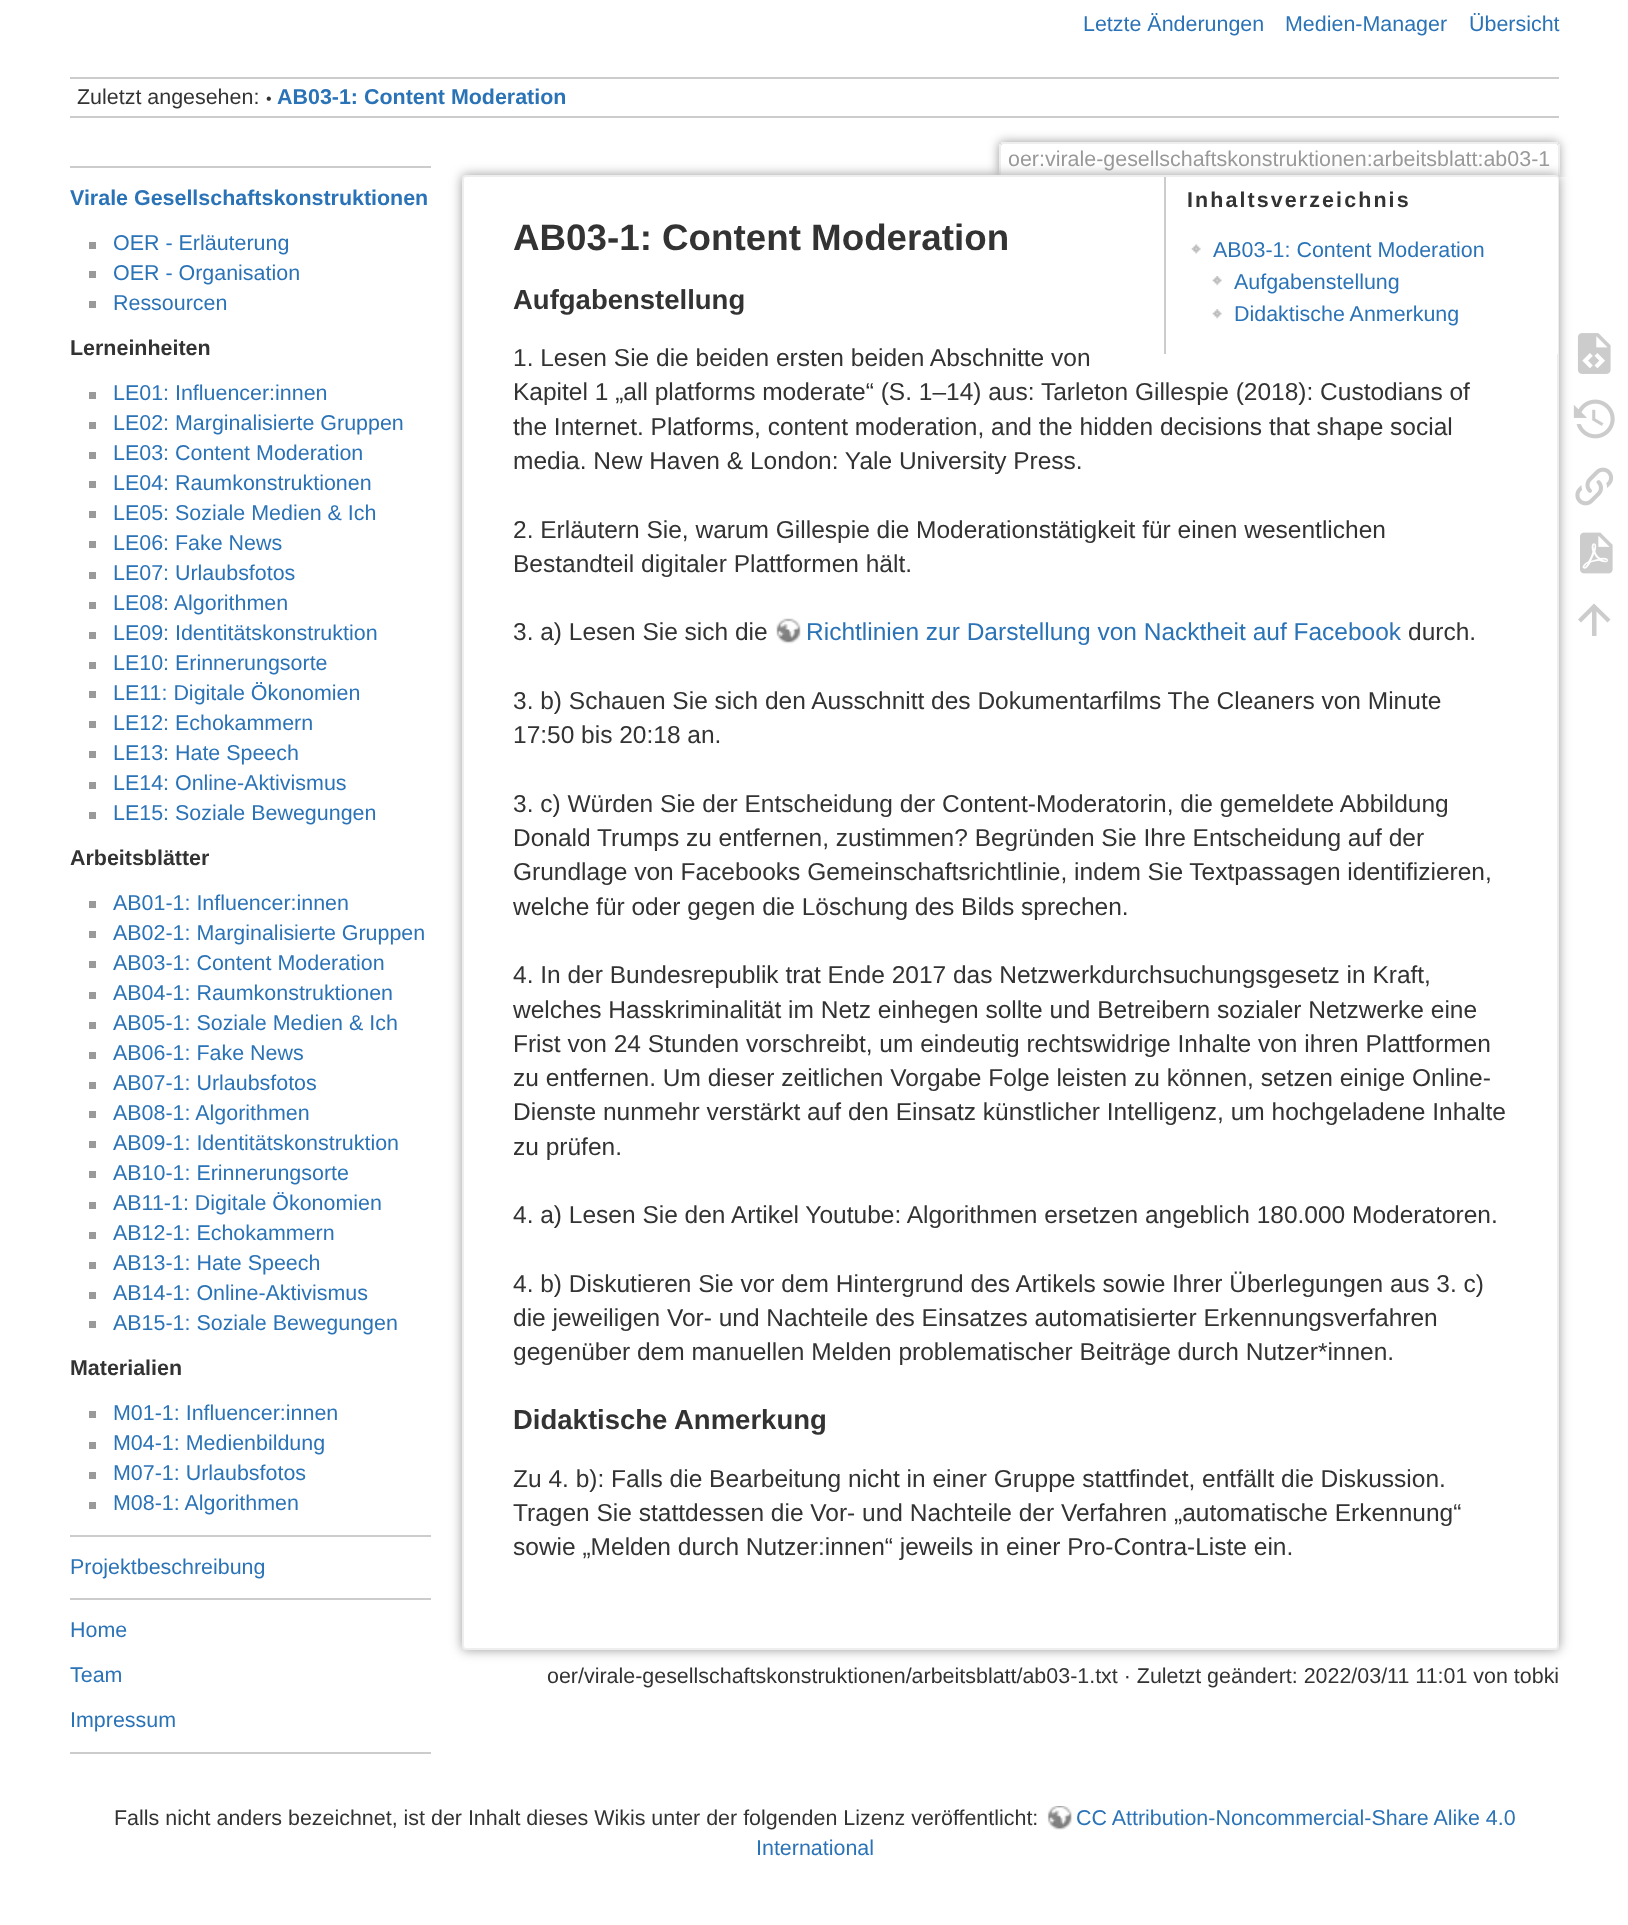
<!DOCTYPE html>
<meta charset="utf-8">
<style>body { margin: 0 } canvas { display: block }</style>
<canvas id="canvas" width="1628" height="1925"></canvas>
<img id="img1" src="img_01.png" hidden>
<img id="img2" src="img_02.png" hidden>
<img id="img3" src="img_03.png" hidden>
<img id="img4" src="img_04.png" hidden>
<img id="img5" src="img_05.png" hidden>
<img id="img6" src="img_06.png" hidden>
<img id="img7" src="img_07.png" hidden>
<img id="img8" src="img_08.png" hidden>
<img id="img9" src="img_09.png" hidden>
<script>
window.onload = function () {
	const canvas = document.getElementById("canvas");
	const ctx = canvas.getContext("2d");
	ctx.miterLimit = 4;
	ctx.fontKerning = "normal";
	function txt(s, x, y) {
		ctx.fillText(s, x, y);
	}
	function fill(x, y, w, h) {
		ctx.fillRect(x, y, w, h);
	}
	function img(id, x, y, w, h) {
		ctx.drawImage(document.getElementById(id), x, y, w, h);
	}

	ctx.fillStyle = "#FFFFFF";
	fill(0, 0, 1628, 1925);
	ctx.fillStyle = "#CCCCCC";
	fill(70, 77, 1489, 2);
	fill(70, 116, 1489, 2);
	fill(70, 166, 361, 2);
	ctx.fillStyle = "#999999";
	fill(89, 242, 7, 7);
	fill(89, 271, 7, 7);
	fill(89, 301, 7, 7);
	fill(89, 392, 7, 7);
	fill(89, 422, 7, 7);
	fill(89, 452, 7, 7);
	fill(89, 481, 7, 7);
	fill(89, 511, 7, 7);
	fill(89, 541, 7, 7);
	fill(89, 572, 7, 7);
	fill(89, 602, 7, 7);
	fill(89, 632, 7, 7);
	fill(89, 662, 7, 7);
	fill(89, 691, 7, 7);
	fill(89, 721, 7, 7);
	fill(89, 751, 7, 7);
	fill(89, 782, 7, 7);
	fill(89, 812, 7, 7);
	fill(89, 901, 7, 7);
	fill(89, 931, 7, 7);
	fill(89, 961, 7, 7);
	fill(89, 992, 7, 7);
	fill(89, 1022, 7, 7);
	fill(89, 1052, 7, 7);
	fill(89, 1082, 7, 7);
	fill(89, 1111, 7, 7);
	fill(89, 1141, 7, 7);
	fill(89, 1171, 7, 7);
	fill(89, 1202, 7, 7);
	fill(89, 1232, 7, 7);
	fill(89, 1262, 7, 7);
	fill(89, 1292, 7, 7);
	fill(89, 1321, 7, 7);
	fill(89, 1411, 7, 7);
	fill(89, 1442, 7, 7);
	fill(89, 1472, 7, 7);
	fill(89, 1502, 7, 7);
	ctx.fillStyle = "#CCCCCC";
	fill(70, 1535, 361, 2);
	fill(70, 1598, 361, 2);
	fill(70, 1752, 361, 2);
	ctx.save();
	ctx.beginPath();
	ctx.rect(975, 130, 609, 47);
	ctx.clip();
	ctx.fillStyle = "#999999";
	ctx.filter = "blur(5.5px)";
	ctx.beginPath();
	ctx.roundRect(999, 142, 560, 35, 4);
	ctx.fill();
	ctx.filter = "none";
	ctx.restore();
	ctx.fillStyle = "#FFFFFF";
	ctx.beginPath();
	ctx.roundRect(1001, 144, 557, 33, [2, 2, 0, 0]);
	ctx.fill();
	ctx.fillStyle = "#EEEEEE";
	fill(1001, 142, 557, 2);
	fill(1558, 144, 2, 33);
	fill(999, 144, 2, 33);
	ctx.fillStyle = "#999999";
	ctx.filter = "blur(6px)";
	ctx.beginPath();
	ctx.roundRect(462, 175, 1097, 1475, 4);
	ctx.fill();
	ctx.filter = "none";
	ctx.fillStyle = "#FFFFFF";
	ctx.beginPath();
	ctx.roundRect(463, 176, 1095, 1473, 3);
	ctx.fill();
	ctx.strokeStyle = "#EEEEEE";
	ctx.lineWidth = 2;
	ctx.stroke();
	ctx.beginPath();
	ctx.roundRect(1164, 177, 394, 177, [0, 2, 0, 0]);
	ctx.fill();
	ctx.fillStyle = "#CCCCCC";
	fill(1164, 177, 2, 177);
	img("img1", 1191, 244, 10, 10);
	img("img2", 1212, 276, 10, 10);
	img("img3", 1212, 309, 10, 10);
	img("img4", 776, 618, 25, 26);
	img("img5", 1577, 333, 34, 41);
	img("img6", 1573, 399, 42, 40);
	img("img7", 1575, 467, 39, 39);
	img("img8", 1580, 532, 33, 42);
	ctx.beginPath();
	ctx.moveTo(1596.5, 636);
	ctx.lineTo(1592, 636);
	ctx.lineTo(1592, 611.5);
	ctx.lineTo(1581, 622.5);
	ctx.lineTo(1578, 619.5);
	ctx.lineTo(1594, 603.5);
	ctx.lineTo(1610.5, 619.5);
	ctx.lineTo(1607.5, 622.5);
	ctx.lineTo(1596.5, 611.5);
	ctx.closePath();
	ctx.fill();
	img("img9", 1047, 1806, 26, 24);
	ctx.font = "21.45px Liberation Sans";
	ctx.fillStyle = "#2B73B7";
	txt("Letzte Änderungen", 1083, 31);
	txt("Medien-Manager", 1285, 31);
	txt("Übersicht", 1469, 31);
	ctx.fillStyle = "#333333";
	txt("Zuletzt angesehen:", 77, 104);
	ctx.font = "16px Liberation Sans";
	txt("•", 266, 104);
	ctx.font = "bold 21.45px Liberation Sans";
	ctx.fillStyle = "#2B73B7";
	txt("AB03-1: Content Moderation", 277, 104);
	txt("Virale Gesellschaftskonstruktionen", 70, 205);
	ctx.font = "21.45px Liberation Sans";
	txt("OER - Erläuterung", 113, 250);
	txt("OER - Organisation", 113, 280);
	txt("Ressourcen", 113, 310);
	ctx.font = "bold 21.45px Liberation Sans";
	ctx.fillStyle = "#333333";
	txt("Lerneinheiten", 70, 355);
	ctx.font = "21.45px Liberation Sans";
	ctx.fillStyle = "#2B73B7";
	txt("LE01: Influencer:innen", 113, 400);
	txt("LE02: Marginalisierte Gruppen", 113, 430);
	txt("LE03: Content Moderation", 113, 460);
	txt("LE04: Raumkonstruktionen", 113, 490);
	txt("LE05: Soziale Medien & Ich", 113, 520);
	txt("LE06: Fake News", 113, 550);
	txt("LE07: Urlaubsfotos", 113, 580);
	txt("LE08: Algorithmen", 113, 610);
	txt("LE09: Identitätskonstruktion", 113, 640);
	txt("LE10: Erinnerungsorte", 113, 670);
	txt("LE11: Digitale Ökonomien", 113, 700);
	txt("LE12: Echokammern", 113, 730);
	txt("LE13: Hate Speech", 113, 760);
	txt("LE14: Online-Aktivismus", 113, 790);
	txt("LE15: Soziale Bewegungen", 113, 820);
	ctx.font = "bold 21.45px Liberation Sans";
	ctx.fillStyle = "#333333";
	txt("Arbeitsblätter", 70, 865);
	ctx.font = "21.45px Liberation Sans";
	ctx.fillStyle = "#2B73B7";
	txt("AB01-1: Influencer:innen", 113, 910);
	txt("AB02-1: Marginalisierte Gruppen", 113, 940);
	txt("AB03-1: Content Moderation", 113, 970);
	txt("AB04-1: Raumkonstruktionen", 113, 1000);
	txt("AB05-1: Soziale Medien & Ich", 113, 1030);
	txt("AB06-1: Fake News", 113, 1060);
	txt("AB07-1: Urlaubsfotos", 113, 1090);
	txt("AB08-1: Algorithmen", 113, 1120);
	txt("AB09-1: Identitätskonstruktion", 113, 1150);
	txt("AB10-1: Erinnerungsorte", 113, 1180);
	txt("AB11-1: Digitale Ökonomien", 113, 1210);
	txt("AB12-1: Echokammern", 113, 1240);
	txt("AB13-1: Hate Speech", 113, 1270);
	txt("AB14-1: Online-Aktivismus", 113, 1300);
	txt("AB15-1: Soziale Bewegungen", 113, 1330);
	ctx.font = "bold 21.45px Liberation Sans";
	ctx.fillStyle = "#333333";
	txt("Materialien", 70, 1375);
	ctx.font = "21.45px Liberation Sans";
	ctx.fillStyle = "#2B73B7";
	txt("M01-1: Influencer:innen", 113, 1420);
	txt("M04-1: Medienbildung", 113, 1450);
	txt("M07-1: Urlaubsfotos", 113, 1480);
	txt("M08-1: Algorithmen", 113, 1510);
	txt("Projektbeschreibung", 70, 1574);
	txt("Home", 70, 1637);
	txt("Team", 70, 1682);
	txt("Impressum", 70, 1727);
	ctx.fillStyle = "#999999";
	txt("oer:virale-gesellschaftskonstruktionen:arbeitsblatt:ab03-1", 1008, 166);
	ctx.font = "bold 36.75px Liberation Sans";
	ctx.fillStyle = "#333333";
	txt("AB03-1: Content Moderation", 513, 250);
	ctx.letterSpacing = "2.1px";
	ctx.font = "bold 21.45px Liberation Sans";
	txt("Inhaltsverzeichnis", 1187, 207);
	ctx.letterSpacing = "0px";
	ctx.font = "21.45px Liberation Sans";
	ctx.fillStyle = "#2B73B7";
	txt("AB03-1: Content Moderation", 1213, 257);
	txt("Aufgabenstellung", 1234, 289);
	txt("Didaktische Anmerkung", 1234, 321);
	ctx.font = "bold 27.5px Liberation Sans";
	ctx.fillStyle = "#333333";
	txt("Aufgabenstellung", 513, 309);
	ctx.font = "24.5px Liberation Sans";
	txt("1. Lesen Sie die beiden ersten beiden Abschnitte von", 513, 366);
	txt("Kapitel 1 „all platforms moderate“ (S. 1–14) aus: Tarleton Gillespie (2018): Custodians of", 513, 400);
	txt("the Internet. Platforms, content moderation, and the hidden decisions that shape social", 513, 435);
	txt("media. New Haven & London: Yale University Press.", 513, 469);
	txt("2. Erläutern Sie, warum Gillespie die Moderationstätigkeit für einen wesentlichen", 513, 538);
	txt("Bestandteil digitaler Plattformen hält.", 513, 572);
	txt("3. a) Lesen Sie sich die", 513, 640);
	ctx.fillStyle = "#2B73B7";
	txt("Richtlinien zur Darstellung von Nacktheit auf Facebook", 806, 640);
	ctx.fillStyle = "#333333";
	txt("durch.", 1408, 640);
	txt("3. b) Schauen Sie sich den Ausschnitt des Dokumentarfilms The Cleaners von Minute", 513, 709);
	txt("17:50 bis 20:18 an.", 513, 743);
	txt("3. c) Würden Sie der Entscheidung der Content-Moderatorin, die gemeldete Abbildung", 513, 812);
	txt("Donald Trumps zu entfernen, zustimmen? Begründen Sie Ihre Entscheidung auf der", 513, 846);
	txt("Grundlage von Facebooks Gemeinschaftsrichtlinie, indem Sie Textpassagen identifizieren,", 513, 880);
	txt("welche für oder gegen die Löschung des Bilds sprechen.", 513, 915);
	txt("4. In der Bundesrepublik trat Ende 2017 das Netzwerkdurchsuchungsgesetz in Kraft,", 513, 983);
	txt("welches Hasskriminalität im Netz einhegen sollte und Betreibern sozialer Netzwerke eine", 513, 1018);
	txt("Frist von 24 Stunden vorschreibt, um eindeutig rechtswidrige Inhalte von ihren Plattformen", 513, 1052);
	txt("zu entfernen. Um dieser zeitlichen Vorgabe Folge leisten zu können, setzen einige Online-", 513, 1086);
	txt("Dienste nunmehr verstärkt auf den Einsatz künstlicher Intelligenz, um hochgeladene Inhalte", 513, 1120);
	txt("zu prüfen.", 513, 1155);
	txt("4. a) Lesen Sie den Artikel Youtube: Algorithmen ersetzen angeblich 180.000 Moderatoren.", 513, 1223);
	txt("4. b) Diskutieren Sie vor dem Hintergrund des Artikels sowie Ihrer Überlegungen aus 3. c)", 513, 1292);
	txt("die jeweiligen Vor- und Nachteile des Einsatzes automatisierter Erkennungsverfahren", 513, 1326);
	txt("gegenüber dem manuellen Melden problematischer Beiträge durch Nutzer*innen.", 513, 1360);
	ctx.font = "bold 27.5px Liberation Sans";
	txt("Didaktische Anmerkung", 513, 1429);
	ctx.font = "24.5px Liberation Sans";
	txt("Zu 4. b): Falls die Bearbeitung nicht in einer Gruppe stattfindet, entfällt die Diskussion.", 513, 1487);
	txt("Tragen Sie stattdessen die Vor- und Nachteile der Verfahren „automatische Erkennung“", 513, 1521);
	txt("sowie „Melden durch Nutzer:innen“ jeweils in einer Pro-Contra-Liste ein.", 513, 1555);
	ctx.font = "21.45px Liberation Sans";
	txt("oer/virale-gesellschaftskonstruktionen/arbeitsblatt/ab03-1.txt · Zuletzt geändert: 2022/03/11 11:01 von tobki", 547, 1683);
	txt("Falls nicht anders bezeichnet, ist der Inhalt dieses Wikis unter der folgenden Lizenz veröffentlicht:", 114, 1825);
	ctx.fillStyle = "#2B73B7";
	txt("CC Attribution-Noncommercial-Share Alike 4.0", 1076, 1825);
	txt("International", 756, 1855);
};
</script>
